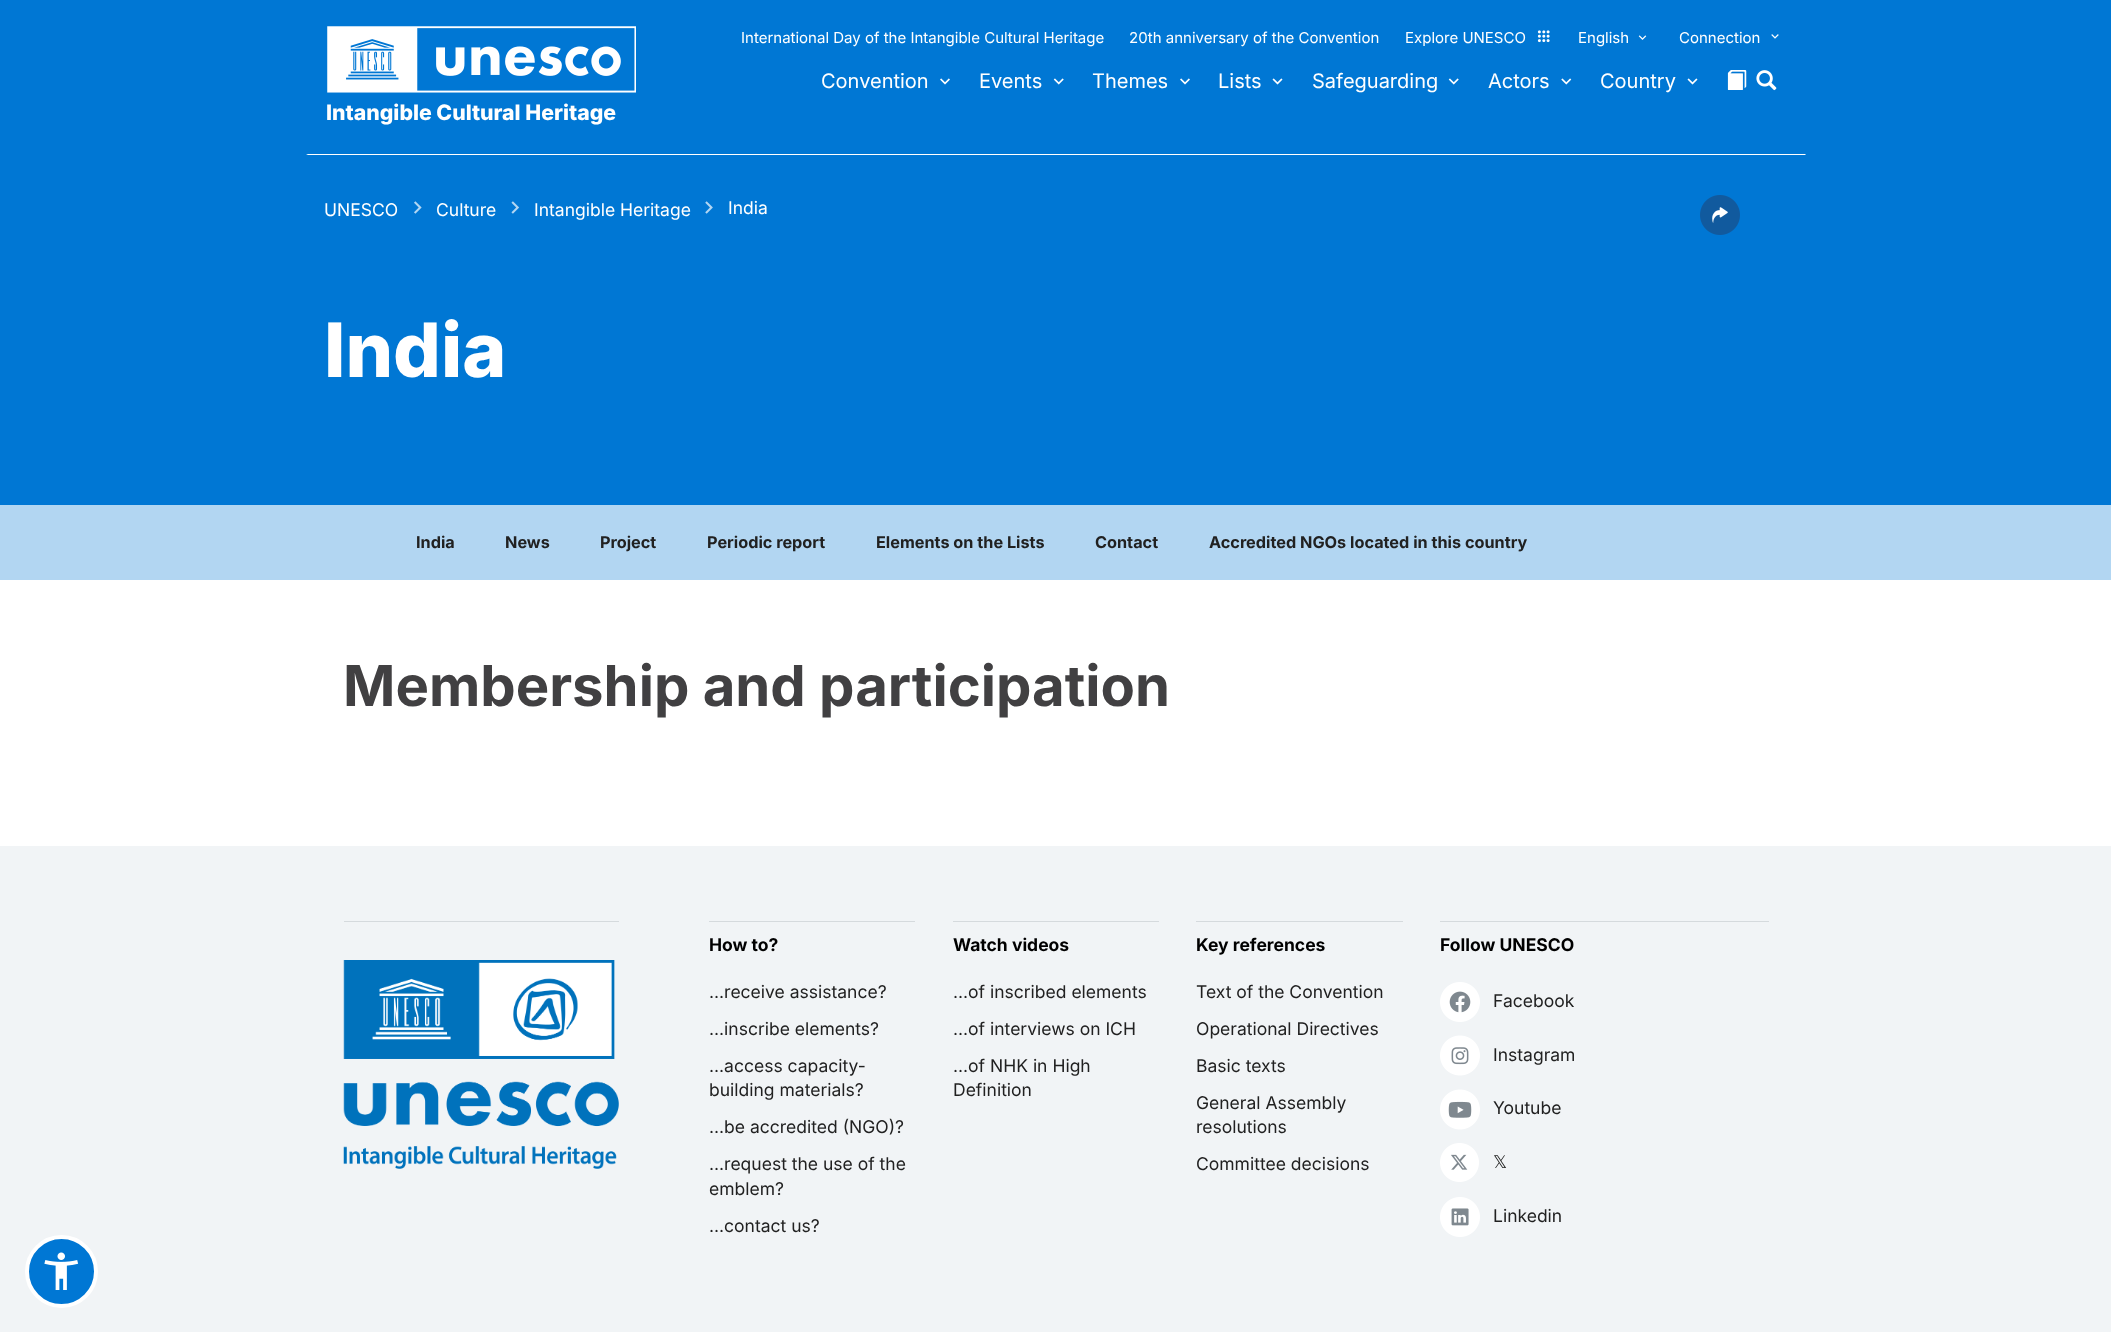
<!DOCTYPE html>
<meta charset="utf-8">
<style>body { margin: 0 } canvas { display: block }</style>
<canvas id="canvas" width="2111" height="1332"></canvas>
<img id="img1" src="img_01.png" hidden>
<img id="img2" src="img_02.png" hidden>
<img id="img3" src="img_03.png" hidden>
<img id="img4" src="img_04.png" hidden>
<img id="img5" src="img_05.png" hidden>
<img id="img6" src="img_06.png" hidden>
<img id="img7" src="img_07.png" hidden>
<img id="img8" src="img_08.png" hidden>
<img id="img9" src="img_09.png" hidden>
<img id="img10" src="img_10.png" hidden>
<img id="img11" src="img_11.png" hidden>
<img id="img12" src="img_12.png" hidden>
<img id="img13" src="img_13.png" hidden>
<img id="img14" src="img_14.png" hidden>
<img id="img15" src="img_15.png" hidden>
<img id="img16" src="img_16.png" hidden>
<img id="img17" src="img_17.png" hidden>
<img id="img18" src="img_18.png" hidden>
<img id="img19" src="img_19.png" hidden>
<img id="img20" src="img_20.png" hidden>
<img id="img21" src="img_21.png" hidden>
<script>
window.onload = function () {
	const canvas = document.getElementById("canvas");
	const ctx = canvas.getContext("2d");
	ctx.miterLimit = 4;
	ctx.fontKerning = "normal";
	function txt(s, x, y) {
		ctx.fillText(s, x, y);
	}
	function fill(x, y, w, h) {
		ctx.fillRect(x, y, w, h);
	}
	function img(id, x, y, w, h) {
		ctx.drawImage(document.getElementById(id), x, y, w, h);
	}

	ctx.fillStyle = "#FFFFFF";
	fill(0, 0, 2111, 1332);
	ctx.fillStyle = "#0077D4";
	fill(0, 0, 2111, 505);
	ctx.fillStyle = "#FFFFFF";
	ctx.beginPath();
	ctx.moveTo(1806, 155);
	ctx.lineTo(306, 155);
	ctx.lineTo(308, 154);
	ctx.lineTo(1805, 154);
	ctx.closePath();
	ctx.fill();
	img("img1", 1537, 30, 13, 13);
	img("img2", 1638, 35, 9, 5);
	img("img3", 1771, 34, 8, 5);
	img("img4", 940, 78, 10, 7);
	img("img5", 1053, 78, 11, 7);
	img("img4", 1180, 78, 10, 7);
	img("img6", 1272, 78, 11, 7);
	img("img5", 1448, 78, 11, 7);
	img("img7", 1561, 78, 11, 7);
	img("img6", 1687, 78, 11, 7);
	img("img8", 1727, 70, 20, 20);
	img("img9", 1756, 70, 21, 21);
	img("img10", 327, 26, 309, 67);
	img("img11", 414, 201, 8, 13);
	img("img12", 511, 201, 9, 13);
	img("img13", 705, 201, 8, 13);
	img("img14", 1700, 195, 40, 40);
	ctx.fillStyle = "#B2D6F2";
	fill(0, 505, 2111, 75);
	ctx.fillStyle = "#F1F4F6";
	fill(0, 846, 2111, 486);
	ctx.fillStyle = "#D5DADD";
	fill(344, 921, 275, 1);
	img("img15", 343, 960, 276, 209);
	fill(709, 921, 206, 1);
	fill(953, 921, 206, 1);
	fill(1196, 921, 207, 1);
	fill(1440, 921, 329, 1);
	img("img16", 1440, 982, 40, 40);
	img("img17", 1440, 1035, 40, 41);
	img("img18", 1440, 1089, 40, 41);
	img("img19", 1440, 1143, 39, 39);
	img("img20", 1440, 1197, 40, 40);
	ctx.fillStyle = "#0077D4";
	ctx.beginPath();
	ctx.arc(61.5, 1271.5, 34.5, 0, Math.PI * 2);
	ctx.fill();
	ctx.strokeStyle = "#FFFFFF";
	ctx.lineWidth = 4;
	ctx.stroke();
	img("img21", 44, 1252, 35, 38);
	ctx.font = "15px Inter";
	ctx.fillStyle = "#FFFFFF";
	txt("International Day of the Intangible Cultural Heritage", 741, 43);
	txt("20th anniversary of the Convention", 1129, 43);
	txt("Explore UNESCO", 1405, 43);
	txt("English", 1578, 43);
	txt("Connection", 1679, 43);
	ctx.font = "20px Inter";
	txt("Convention", 821, 88);
	txt("Events", 979, 88);
	txt("Themes", 1092, 88);
	txt("Lists", 1218, 88);
	txt("Safeguarding", 1312, 88);
	txt("Actors", 1488, 88);
	txt("Country", 1600, 88);
	ctx.font = "800 21.25px Inter";
	txt("Intangible Cultural Heritage", 326, 120);
	ctx.font = "17.5px Inter";
	txt("UNESCO", 324, 216);
	txt("Culture", 436, 216);
	txt("Intangible Heritage", 534, 216);
	txt("India", 728, 214);
	ctx.font = "800 75px Inter";
	txt("India", 324, 377);
	ctx.font = "bold 16.25px Inter";
	ctx.fillStyle = "#212121";
	txt("India", 416, 548);
	txt("News", 505, 548);
	txt("Project", 600, 548);
	txt("Periodic report", 707, 548);
	txt("Elements on the Lists", 876, 548);
	txt("Contact", 1095, 548);
	txt("Accredited NGOs located in this country", 1209, 548);
	ctx.font = "bold 56.25px Inter";
	ctx.fillStyle = "#414042";
	txt("Membership and participation", 343, 706);
	ctx.font = "bold 17.5px Inter";
	ctx.fillStyle = "#000000";
	txt("How to?", 709, 951);
	ctx.font = "17.5px Inter";
	ctx.fillStyle = "#212121";
	txt("...receive assistance?", 709, 998);
	txt("...inscribe elements?", 709, 1035);
	txt("...access capacity-", 709, 1072);
	txt("building materials?", 709, 1096);
	txt("...be accredited (NGO)?", 709, 1133);
	txt("...request the use of the", 709, 1170);
	txt("emblem?", 709, 1195);
	txt("...contact us?", 709, 1232);
	ctx.font = "bold 17.5px Inter";
	ctx.fillStyle = "#000000";
	txt("Watch videos", 953, 951);
	ctx.font = "17.5px Inter";
	ctx.fillStyle = "#212121";
	txt("...of inscribed elements", 953, 998);
	txt("...of interviews on ICH", 953, 1035);
	txt("...of NHK in High", 953, 1072);
	txt("Definition", 953, 1096);
	ctx.font = "bold 17.5px Inter";
	ctx.fillStyle = "#000000";
	txt("Key references", 1196, 951);
	ctx.font = "17.5px Inter";
	ctx.fillStyle = "#212121";
	txt("Text of the Convention", 1196, 998);
	txt("Operational Directives", 1196, 1035);
	txt("Basic texts", 1196, 1072);
	txt("General Assembly", 1196, 1109);
	txt("resolutions", 1196, 1133);
	txt("Committee decisions", 1196, 1170);
	ctx.font = "bold 17.5px Inter";
	ctx.fillStyle = "#000000";
	txt("Follow UNESCO", 1440, 951);
	ctx.font = "17.5px Inter";
	ctx.fillStyle = "#212121";
	txt("Facebook", 1493, 1007);
	txt("Instagram", 1493, 1061);
	txt("Youtube", 1493, 1114);
	ctx.font = "17.5px DejaVu Sans";
	txt("𝕏", 1493, 1168);
	ctx.font = "17.5px Inter";
	txt("Linkedin", 1493, 1222);
};
</script>
